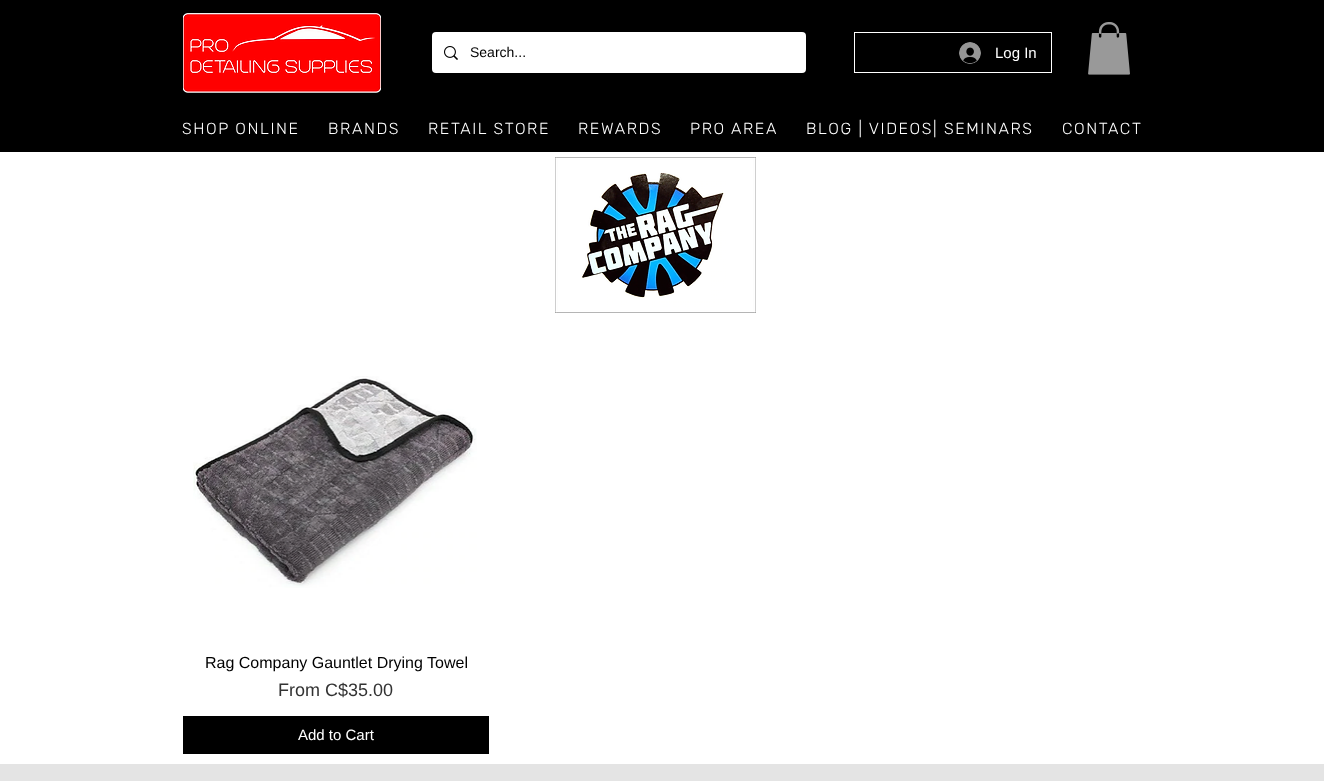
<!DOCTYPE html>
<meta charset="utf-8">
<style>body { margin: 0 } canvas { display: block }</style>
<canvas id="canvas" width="1324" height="781"></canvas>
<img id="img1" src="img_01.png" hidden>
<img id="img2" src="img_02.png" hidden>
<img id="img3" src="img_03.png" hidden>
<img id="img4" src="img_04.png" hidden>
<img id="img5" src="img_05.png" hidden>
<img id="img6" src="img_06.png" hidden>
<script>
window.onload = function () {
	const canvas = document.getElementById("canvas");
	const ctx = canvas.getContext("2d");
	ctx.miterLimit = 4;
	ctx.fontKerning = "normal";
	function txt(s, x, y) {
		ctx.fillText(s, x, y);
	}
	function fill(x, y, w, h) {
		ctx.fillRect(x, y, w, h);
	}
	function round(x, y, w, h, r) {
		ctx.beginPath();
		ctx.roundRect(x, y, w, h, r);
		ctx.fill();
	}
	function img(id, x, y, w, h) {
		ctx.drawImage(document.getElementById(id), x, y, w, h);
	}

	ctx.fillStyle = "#FFFFFF";
	fill(0, 0, 1324, 781);
	ctx.fillStyle = "#000000";
	fill(0, 0, 1324, 152);
	img("img1", 183, 13, 198, 80);
	ctx.fillStyle = "#FFFFFF";
	round(432, 32, 374, 41, 4);
	img("img2", 444, 46, 14, 14);
	ctx.strokeStyle = "#FFFFFF";
	ctx.strokeRect(854.5, 32.5, 197, 40);
	img("img3", 959, 42, 22, 22);
	img("img4", 1088, 22, 42, 53);
	img("img5", 555, 157, 201, 156);
	img("img6", 193, 376, 284, 212);
	ctx.fillStyle = "#000000";
	fill(183, 716, 306, 38);
	ctx.fillStyle = "#E4E4E4";
	fill(0, 764, 1324, 17);
	ctx.font = "14px Liberation Sans";
	ctx.fillStyle = "#000000";
	txt("Search...", 470, 57);
	ctx.font = "15px Liberation Sans";
	ctx.fillStyle = "#FFFFFF";
	txt("Log In", 995, 58);
	ctx.letterSpacing = "1.6px";
	ctx.font = "300 16px Rubik";
	txt("SHOP ONLINE", 182, 134);
	txt("BRANDS", 328, 134);
	txt("RETAIL STORE", 428, 134);
	txt("REWARDS", 578, 134);
	txt("PRO AREA", 690, 134);
	txt("BLOG | VIDEOS| SEMINARS", 806, 134);
	txt("CONTACT", 1062, 134);
	ctx.letterSpacing = "0px";
	ctx.font = "16px Liberation Sans";
	ctx.fillStyle = "#000000";
	txt("Rag Company Gauntlet Drying Towel", 205, 668);
	ctx.font = "18px Liberation Sans";
	ctx.fillStyle = "#333333";
	txt("From C$35.00", 278, 696);
	ctx.font = "15px Liberation Sans";
	ctx.fillStyle = "#FFFFFF";
	txt("Add to Cart", 298, 740);
};
</script>
